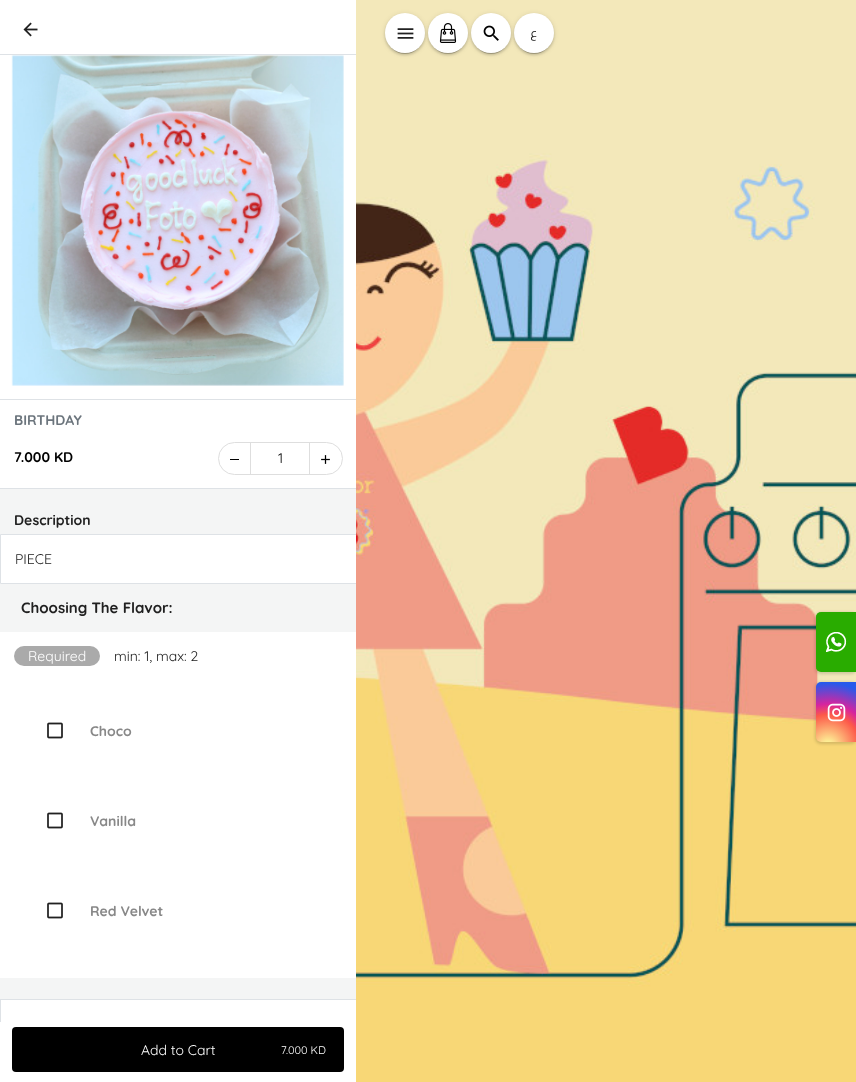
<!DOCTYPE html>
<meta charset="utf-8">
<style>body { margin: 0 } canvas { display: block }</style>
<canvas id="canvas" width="856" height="1082"></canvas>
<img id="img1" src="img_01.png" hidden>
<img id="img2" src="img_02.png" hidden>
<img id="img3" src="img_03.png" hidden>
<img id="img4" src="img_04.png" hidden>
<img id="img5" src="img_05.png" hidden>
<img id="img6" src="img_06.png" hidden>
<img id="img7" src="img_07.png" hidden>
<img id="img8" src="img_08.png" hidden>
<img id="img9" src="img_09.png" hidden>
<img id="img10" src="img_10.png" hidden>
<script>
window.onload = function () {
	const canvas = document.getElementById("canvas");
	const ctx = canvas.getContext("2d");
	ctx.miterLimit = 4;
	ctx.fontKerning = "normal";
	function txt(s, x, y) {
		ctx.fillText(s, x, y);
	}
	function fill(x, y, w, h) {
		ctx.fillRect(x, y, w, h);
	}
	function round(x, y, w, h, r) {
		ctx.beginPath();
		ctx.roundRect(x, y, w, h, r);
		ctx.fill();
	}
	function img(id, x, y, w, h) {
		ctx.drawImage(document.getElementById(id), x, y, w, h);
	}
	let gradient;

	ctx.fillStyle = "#F4F5F5";
	fill(0, 0, 856, 1082);
	ctx.fillStyle = "#DEE2E6";
	fill(0, 399, 357, 1);
	fill(0, 488, 357, 1);
	ctx.fillStyle = "#FFFFFF";
	ctx.beginPath();
	ctx.rect(0.5, 534.5, 356, 49);
	ctx.fill();
	ctx.strokeStyle = "#DEE2E6";
	ctx.stroke();
	fill(1, 1000, 355, 22);
	ctx.strokeRect(0.5, 999.5, 356, 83);
	img("img1", 356, 0, 500, 1082);
	ctx.fillStyle = "rgba(0, 0, 0, 0.12)";
	ctx.filter = "blur(2.5px)";
	ctx.beginPath();
	ctx.roundRect(385, 14, 40, 40, 20);
	ctx.fill();
	ctx.filter = "none";
	ctx.fillStyle = "rgba(0, 0, 0, 0.14)";
	ctx.filter = "blur(1px)";
	ctx.beginPath();
	ctx.roundRect(385, 15, 40, 40, 20);
	ctx.fill();
	ctx.filter = "none";
	ctx.fillStyle = "rgba(0, 0, 0, 0.2)";
	ctx.filter = "blur(0.5px)";
	ctx.beginPath();
	ctx.roundRect(387, 18, 36, 36, 18);
	ctx.fill();
	ctx.filter = "none";
	ctx.fillStyle = "#FFFFFF";
	ctx.beginPath();
	ctx.arc(405, 33, 20, 0, Math.PI * 2);
	ctx.fill();
	img("img2", 397, 28, 17, 11);
	ctx.fillStyle = "rgba(0, 0, 0, 0.12)";
	ctx.filter = "blur(2.5px)";
	ctx.beginPath();
	ctx.roundRect(514, 14, 40, 40, 20);
	ctx.fill();
	ctx.filter = "none";
	ctx.fillStyle = "rgba(0, 0, 0, 0.14)";
	ctx.filter = "blur(1px)";
	ctx.beginPath();
	ctx.roundRect(514, 15, 40, 40, 20);
	ctx.fill();
	ctx.filter = "none";
	ctx.fillStyle = "rgba(0, 0, 0, 0.2)";
	ctx.filter = "blur(0.5px)";
	ctx.beginPath();
	ctx.roundRect(516, 18, 36, 36, 18);
	ctx.fill();
	ctx.filter = "none";
	ctx.fillStyle = "#FFFFFF";
	ctx.beginPath();
	ctx.arc(534, 33, 20, 0, Math.PI * 2);
	ctx.fill();
	ctx.fillStyle = "rgba(0, 0, 0, 0.12)";
	ctx.filter = "blur(2.5px)";
	ctx.beginPath();
	ctx.roundRect(471, 14, 40, 40, 20);
	ctx.fill();
	ctx.filter = "none";
	ctx.fillStyle = "rgba(0, 0, 0, 0.14)";
	ctx.filter = "blur(1px)";
	ctx.beginPath();
	ctx.roundRect(471, 15, 40, 40, 20);
	ctx.fill();
	ctx.filter = "none";
	ctx.fillStyle = "rgba(0, 0, 0, 0.2)";
	ctx.filter = "blur(0.5px)";
	ctx.beginPath();
	ctx.roundRect(473, 18, 36, 36, 18);
	ctx.fill();
	ctx.filter = "none";
	ctx.fillStyle = "#FFFFFF";
	ctx.beginPath();
	ctx.arc(491, 33, 20, 0, Math.PI * 2);
	ctx.fill();
	ctx.fillStyle = "rgba(0, 0, 0, 0.12)";
	ctx.filter = "blur(2.5px)";
	ctx.beginPath();
	ctx.roundRect(428, 14, 40, 40, 20);
	ctx.fill();
	ctx.filter = "none";
	ctx.fillStyle = "rgba(0, 0, 0, 0.14)";
	ctx.filter = "blur(1px)";
	ctx.beginPath();
	ctx.roundRect(428, 15, 40, 40, 20);
	ctx.fill();
	ctx.filter = "none";
	ctx.fillStyle = "rgba(0, 0, 0, 0.2)";
	ctx.filter = "blur(0.5px)";
	ctx.beginPath();
	ctx.roundRect(430, 18, 36, 36, 18);
	ctx.fill();
	ctx.filter = "none";
	ctx.fillStyle = "#FFFFFF";
	ctx.beginPath();
	ctx.arc(448, 33, 20, 0, Math.PI * 2);
	ctx.fill();
	img("img3", 439, 23, 18, 20);
	img("img4", 483, 25, 16, 16);
	fill(0, 0, 356, 54);
	ctx.fillStyle = "#DEE2E6";
	fill(0, 54, 356, 1);
	img("img5", 23, 22, 15, 15);
	ctx.fillStyle = "#FFFFFF";
	fill(0, 55, 356, 344);
	img("img6", 11, 55, 333, 331);
	fill(0, 400, 356, 88);
	ctx.beginPath();
	ctx.roundRect(218.5, 442.5, 124, 32, 16);
	ctx.strokeStyle = "#DEDEDE";
	ctx.stroke();
	ctx.fillStyle = "#000000";
	fill(230, 459, 9, 1);
	ctx.fillStyle = "#DEDEDE";
	fill(309, 442, 1, 32);
	fill(250, 442, 1, 32);
	img("img7", 321, 455, 9, 9);
	ctx.fillStyle = "#FFFFFF";
	fill(0, 632, 356, 346);
	ctx.fillStyle = "#AAAAAA";
	round(14, 646, 86, 20, 10);
	img("img8", 47, 722, 16, 17);
	img("img8", 47, 812, 16, 17);
	img("img8", 47, 902, 16, 17);
	ctx.fillStyle = "#FFFFFF";
	fill(0, 1022, 356, 60);
	ctx.fillStyle = "#000000";
	round(12, 1027, 332, 45, 4);
	ctx.fillStyle = "rgba(0, 0, 0, 0.15)";
	ctx.filter = "blur(1.5px)";
	ctx.beginPath();
	ctx.roundRect(815, 612, 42, 62, 6);
	ctx.fill();
	ctx.filter = "none";
	ctx.fillStyle = "#29AC00";
	ctx.beginPath();
	ctx.roundRect(816, 612, 40, 60, [5, 0, 0, 5]);
	ctx.fill();
	img("img9", 816, 613, 31, 58);
	ctx.fillStyle = "rgba(0, 0, 0, 0.15)";
	ctx.filter = "blur(1.5px)";
	ctx.beginPath();
	ctx.roundRect(815, 682, 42, 62, 6);
	ctx.fill();
	ctx.filter = "none";
	gradient = ctx.createRadialGradient(828, 746, 0, 828, 746, 70);
	gradient.addColorStop(0, "#FDF497");
	gradient.addColorStop(0.05, "#FDF497");
	gradient.addColorStop(0.45, "#FD5949");
	gradient.addColorStop(0.6, "#D6249F");
	gradient.addColorStop(0.9, "#285AEB");
	ctx.fillStyle = gradient;
	ctx.beginPath();
	ctx.roundRect(816, 682, 40, 60, [5, 0, 0, 5]);
	ctx.fill();
	img("img10", 827, 703, 19, 19);
	ctx.direction = "rtl";
	ctx.font = "12px Cairo";
	ctx.fillStyle = "#202020";
	txt("ع", 537, 37);
	ctx.direction = "ltr";
	ctx.font = "300 14px Quicksand";
	ctx.fillStyle = "#6C757D";
	txt("BIRTHDAY", 14, 425);
	ctx.fillStyle = "#000000";
	txt("7.000 KD", 14, 462);
	ctx.font = "300 14px 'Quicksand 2'";
	txt("1", 278, 463);
	ctx.font = "300 14px Quicksand";
	ctx.fillStyle = "#202020";
	txt("Description", 14, 525);
	ctx.font = "300 14px 'Quicksand 2'";
	txt("PIECE", 15, 564);
	ctx.font = "300 15px Quicksand";
	txt("Choosing The Flavor:", 21, 613);
	ctx.font = "300 14px 'Quicksand 2'";
	ctx.fillStyle = "#FFFFFF";
	txt("Required", 28, 661);
	ctx.fillStyle = "#202020";
	txt("min: 1, max: 2", 114, 661);
	ctx.font = "300 14px Quicksand";
	ctx.fillStyle = "#888888";
	txt("Choco", 90, 736);
	txt("Vanilla", 90, 826);
	txt("Red Velvet", 90, 916);
	ctx.font = "300 14px 'Quicksand 2'";
	ctx.fillStyle = "#FFFFFF";
	txt("Add to Cart", 141, 1055);
	ctx.font = "300 11px 'Quicksand 2'";
	txt("7.000 KD", 281, 1054);
};
</script>
